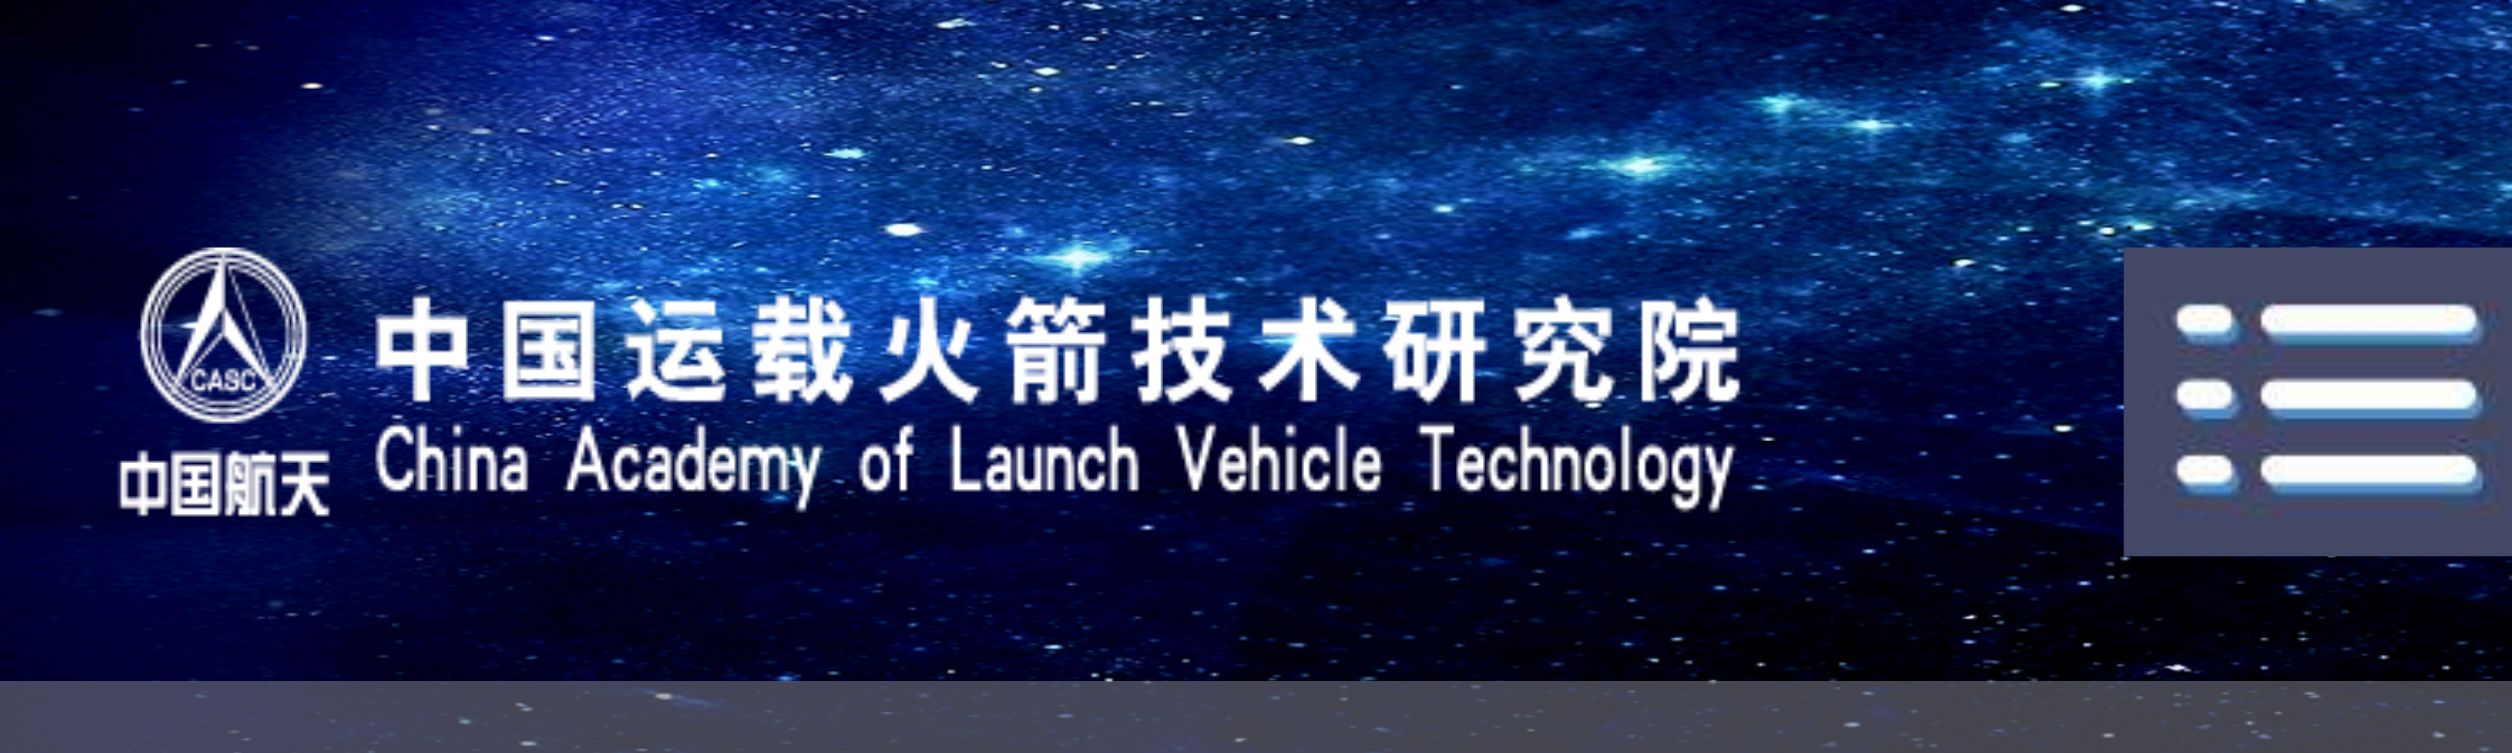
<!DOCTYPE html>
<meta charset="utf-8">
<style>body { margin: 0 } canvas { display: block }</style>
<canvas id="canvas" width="2512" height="753"></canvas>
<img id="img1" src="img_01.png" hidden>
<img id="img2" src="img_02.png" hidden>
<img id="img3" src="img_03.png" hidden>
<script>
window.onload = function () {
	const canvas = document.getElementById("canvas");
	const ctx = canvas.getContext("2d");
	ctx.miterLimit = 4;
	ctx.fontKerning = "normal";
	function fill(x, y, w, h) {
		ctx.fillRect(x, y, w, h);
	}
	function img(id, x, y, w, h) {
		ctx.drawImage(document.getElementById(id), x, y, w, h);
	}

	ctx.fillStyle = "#FFFFFF";
	fill(0, 0, 2512, 753);
	img("img1", 0, 0, 2512, 753);
	img("img2", 117, 247, 1624, 270);
	img("img3", 2123, 247, 389, 310);
	ctx.fillStyle = "rgba(114, 115, 126, 0.6)";
	fill(0, 681, 2512, 72);
};
</script>
